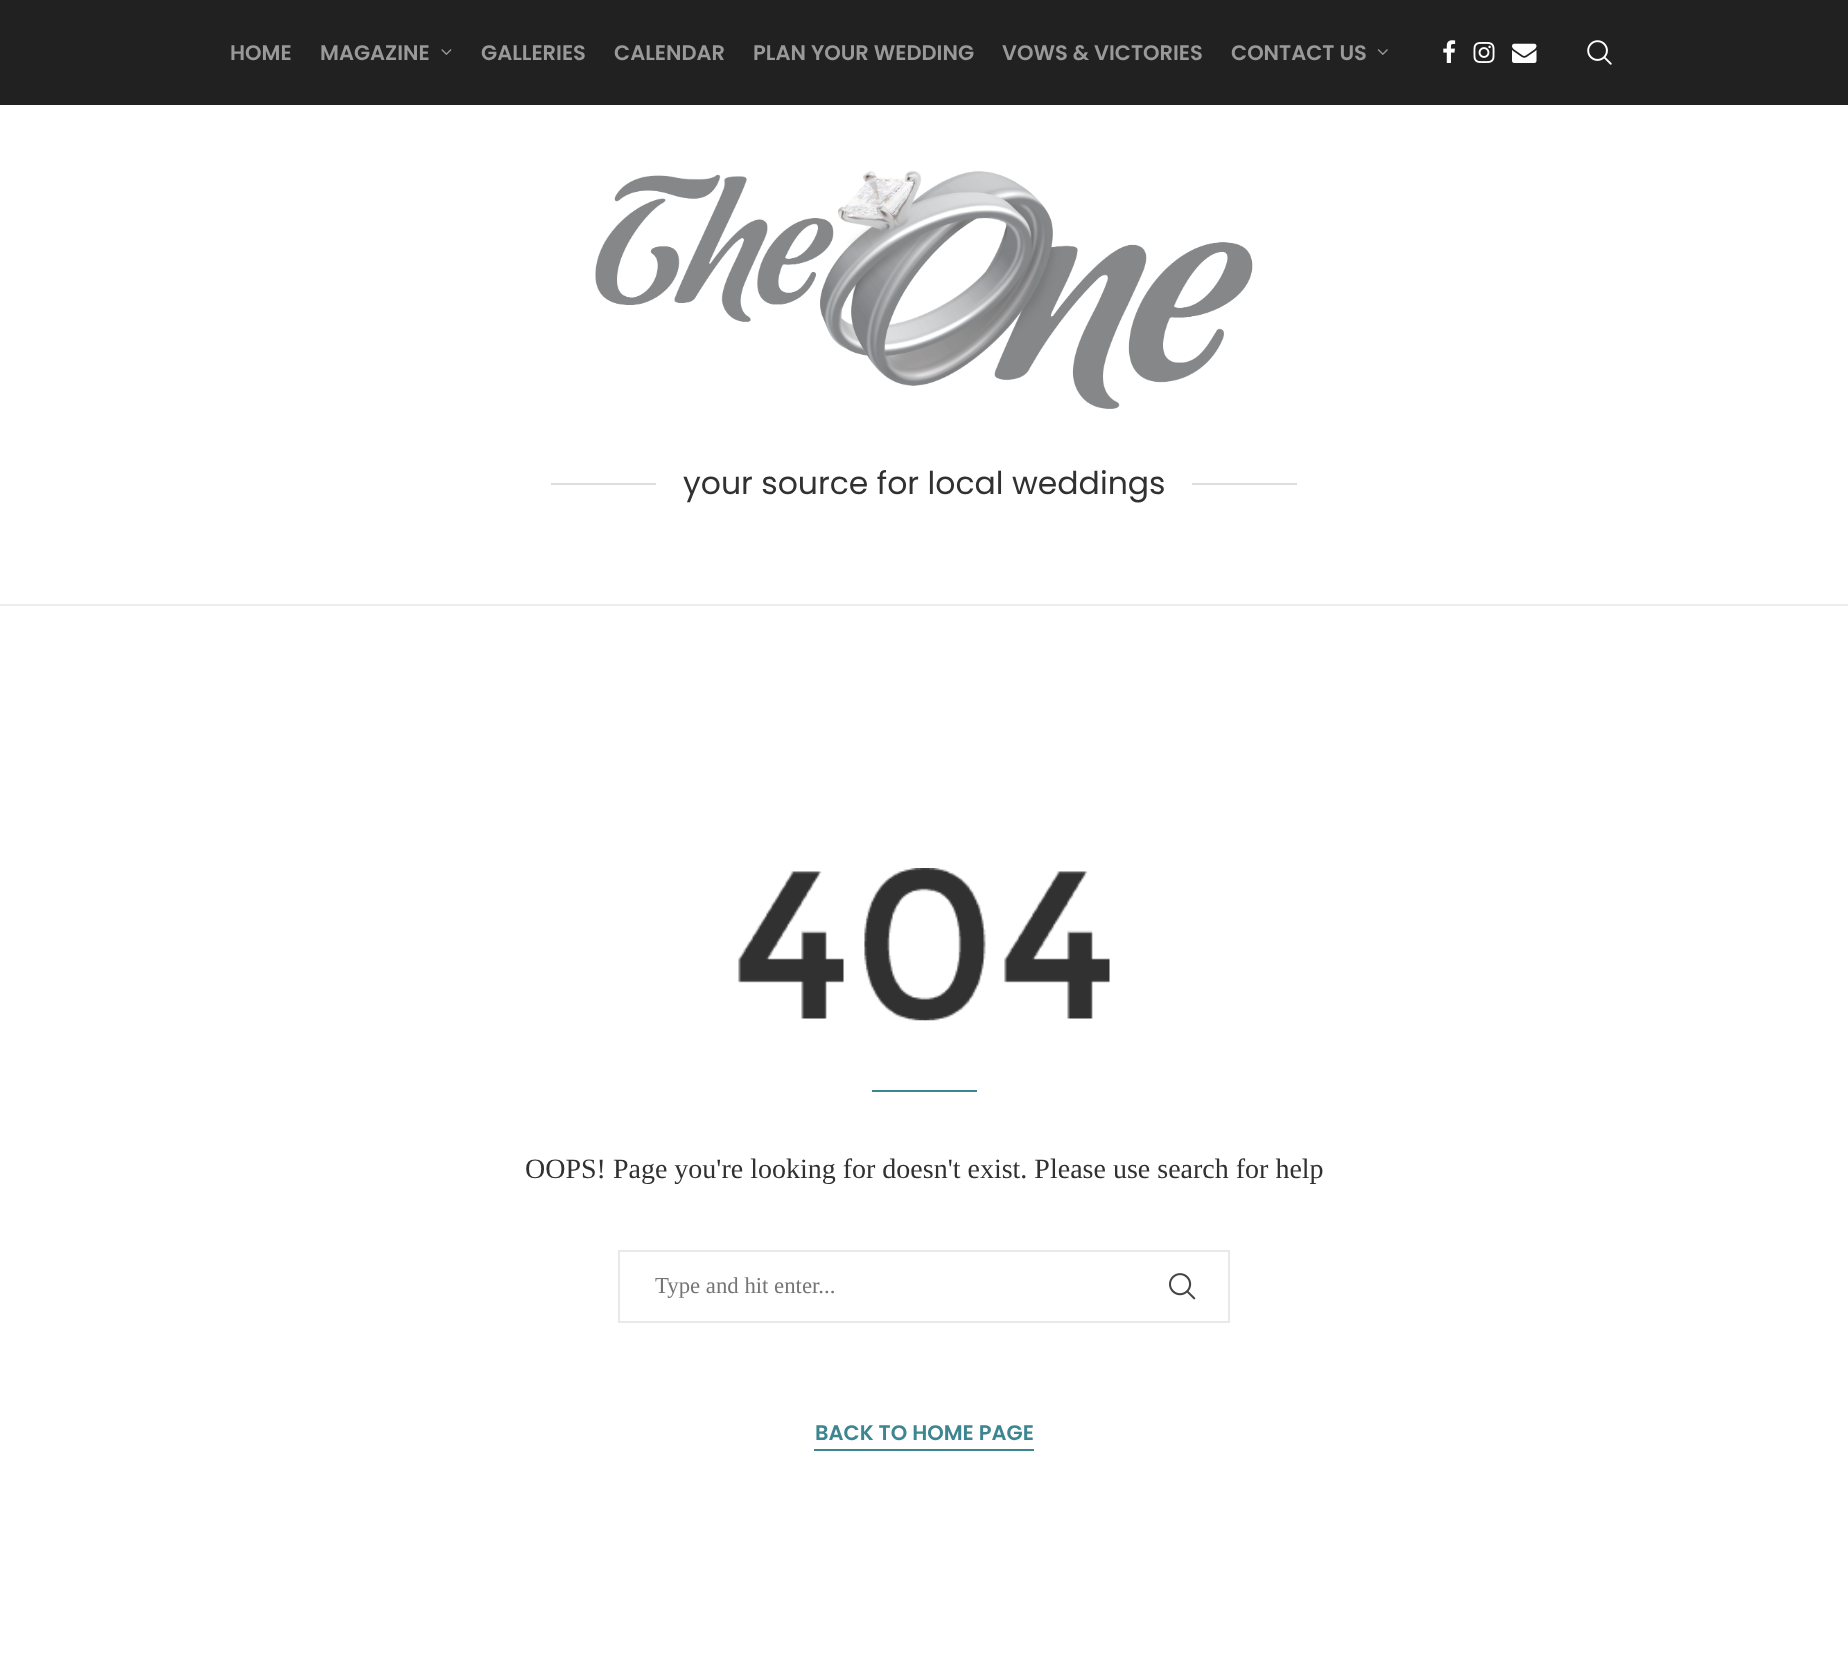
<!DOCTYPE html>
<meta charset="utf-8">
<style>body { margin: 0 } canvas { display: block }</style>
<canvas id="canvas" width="1848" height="1674"></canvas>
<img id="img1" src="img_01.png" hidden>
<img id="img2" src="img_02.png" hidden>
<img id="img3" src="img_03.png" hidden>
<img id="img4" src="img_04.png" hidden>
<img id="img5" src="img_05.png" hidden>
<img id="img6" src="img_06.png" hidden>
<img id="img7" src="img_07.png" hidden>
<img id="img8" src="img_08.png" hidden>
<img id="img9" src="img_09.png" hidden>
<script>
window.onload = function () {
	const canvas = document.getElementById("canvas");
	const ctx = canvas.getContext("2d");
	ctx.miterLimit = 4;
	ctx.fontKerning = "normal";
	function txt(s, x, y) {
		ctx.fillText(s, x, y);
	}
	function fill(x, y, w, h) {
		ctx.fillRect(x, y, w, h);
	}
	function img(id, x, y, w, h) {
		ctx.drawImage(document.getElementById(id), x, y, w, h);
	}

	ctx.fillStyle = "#FFFFFF";
	fill(0, 0, 1848, 1674);
	ctx.fillStyle = "#212121";
	fill(0, 0, 1848, 105);
	img("img1", 441, 49, 11, 6);
	img("img2", 1377, 49, 11, 6);
	img("img3", 1443, 40, 13, 23);
	img("img4", 1473, 42, 22, 21);
	img("img5", 1512, 43, 25, 20);
	img("img6", 1587, 40, 25, 25);
	ctx.fillStyle = "#ECECEC";
	fill(0, 604, 1848, 2);
	img("img7", 595, 170, 658, 239);
	ctx.fillStyle = "#DEDEDE";
	fill(551, 483, 105, 2);
	fill(1192, 483, 105, 2);
	img("img8", 738, 868, 372, 153);
	ctx.fillStyle = "#3D8591";
	fill(872, 1090, 105, 2);
	ctx.strokeStyle = "#E9E9E9";
	ctx.lineWidth = 2;
	ctx.strokeRect(619, 1251, 610, 71);
	img("img9", 1169, 1273, 27, 27);
	fill(814, 1449, 220, 2);
	ctx.font = "600 21px Poppins";
	ctx.fillStyle = "#999999";
	txt("HOME", 230, 60);
	txt("MAGAZINE", 320, 60);
	txt("GALLERIES", 481, 60);
	txt("CALENDAR", 614, 60);
	txt("PLAN YOUR WEDDING", 753, 60);
	txt("VOWS & VICTORIES", 1002, 60);
	txt("CONTACT US", 1231, 60);
	ctx.font = "31.5px Poppins";
	ctx.fillStyle = "#313131";
	txt("your source for local weddings", 683, 494);
	ctx.font = "28px Liberation Serif";
	txt("OOPS! Page you're looking for doesn't exist. Please use search for help", 525, 1178);
	ctx.save();
	ctx.beginPath();
	ctx.rect(655, 1272, 504, 28);
	ctx.clip();
	ctx.font = "22.75px Liberation Serif";
	ctx.fillStyle = "#757575";
	txt("Type and hit enter...", 655, 1293);
	ctx.restore();
	ctx.font = "600 21px Poppins";
	ctx.fillStyle = "#3D8591";
	txt("BACK TO HOME PAGE", 815, 1440);
};
</script>
